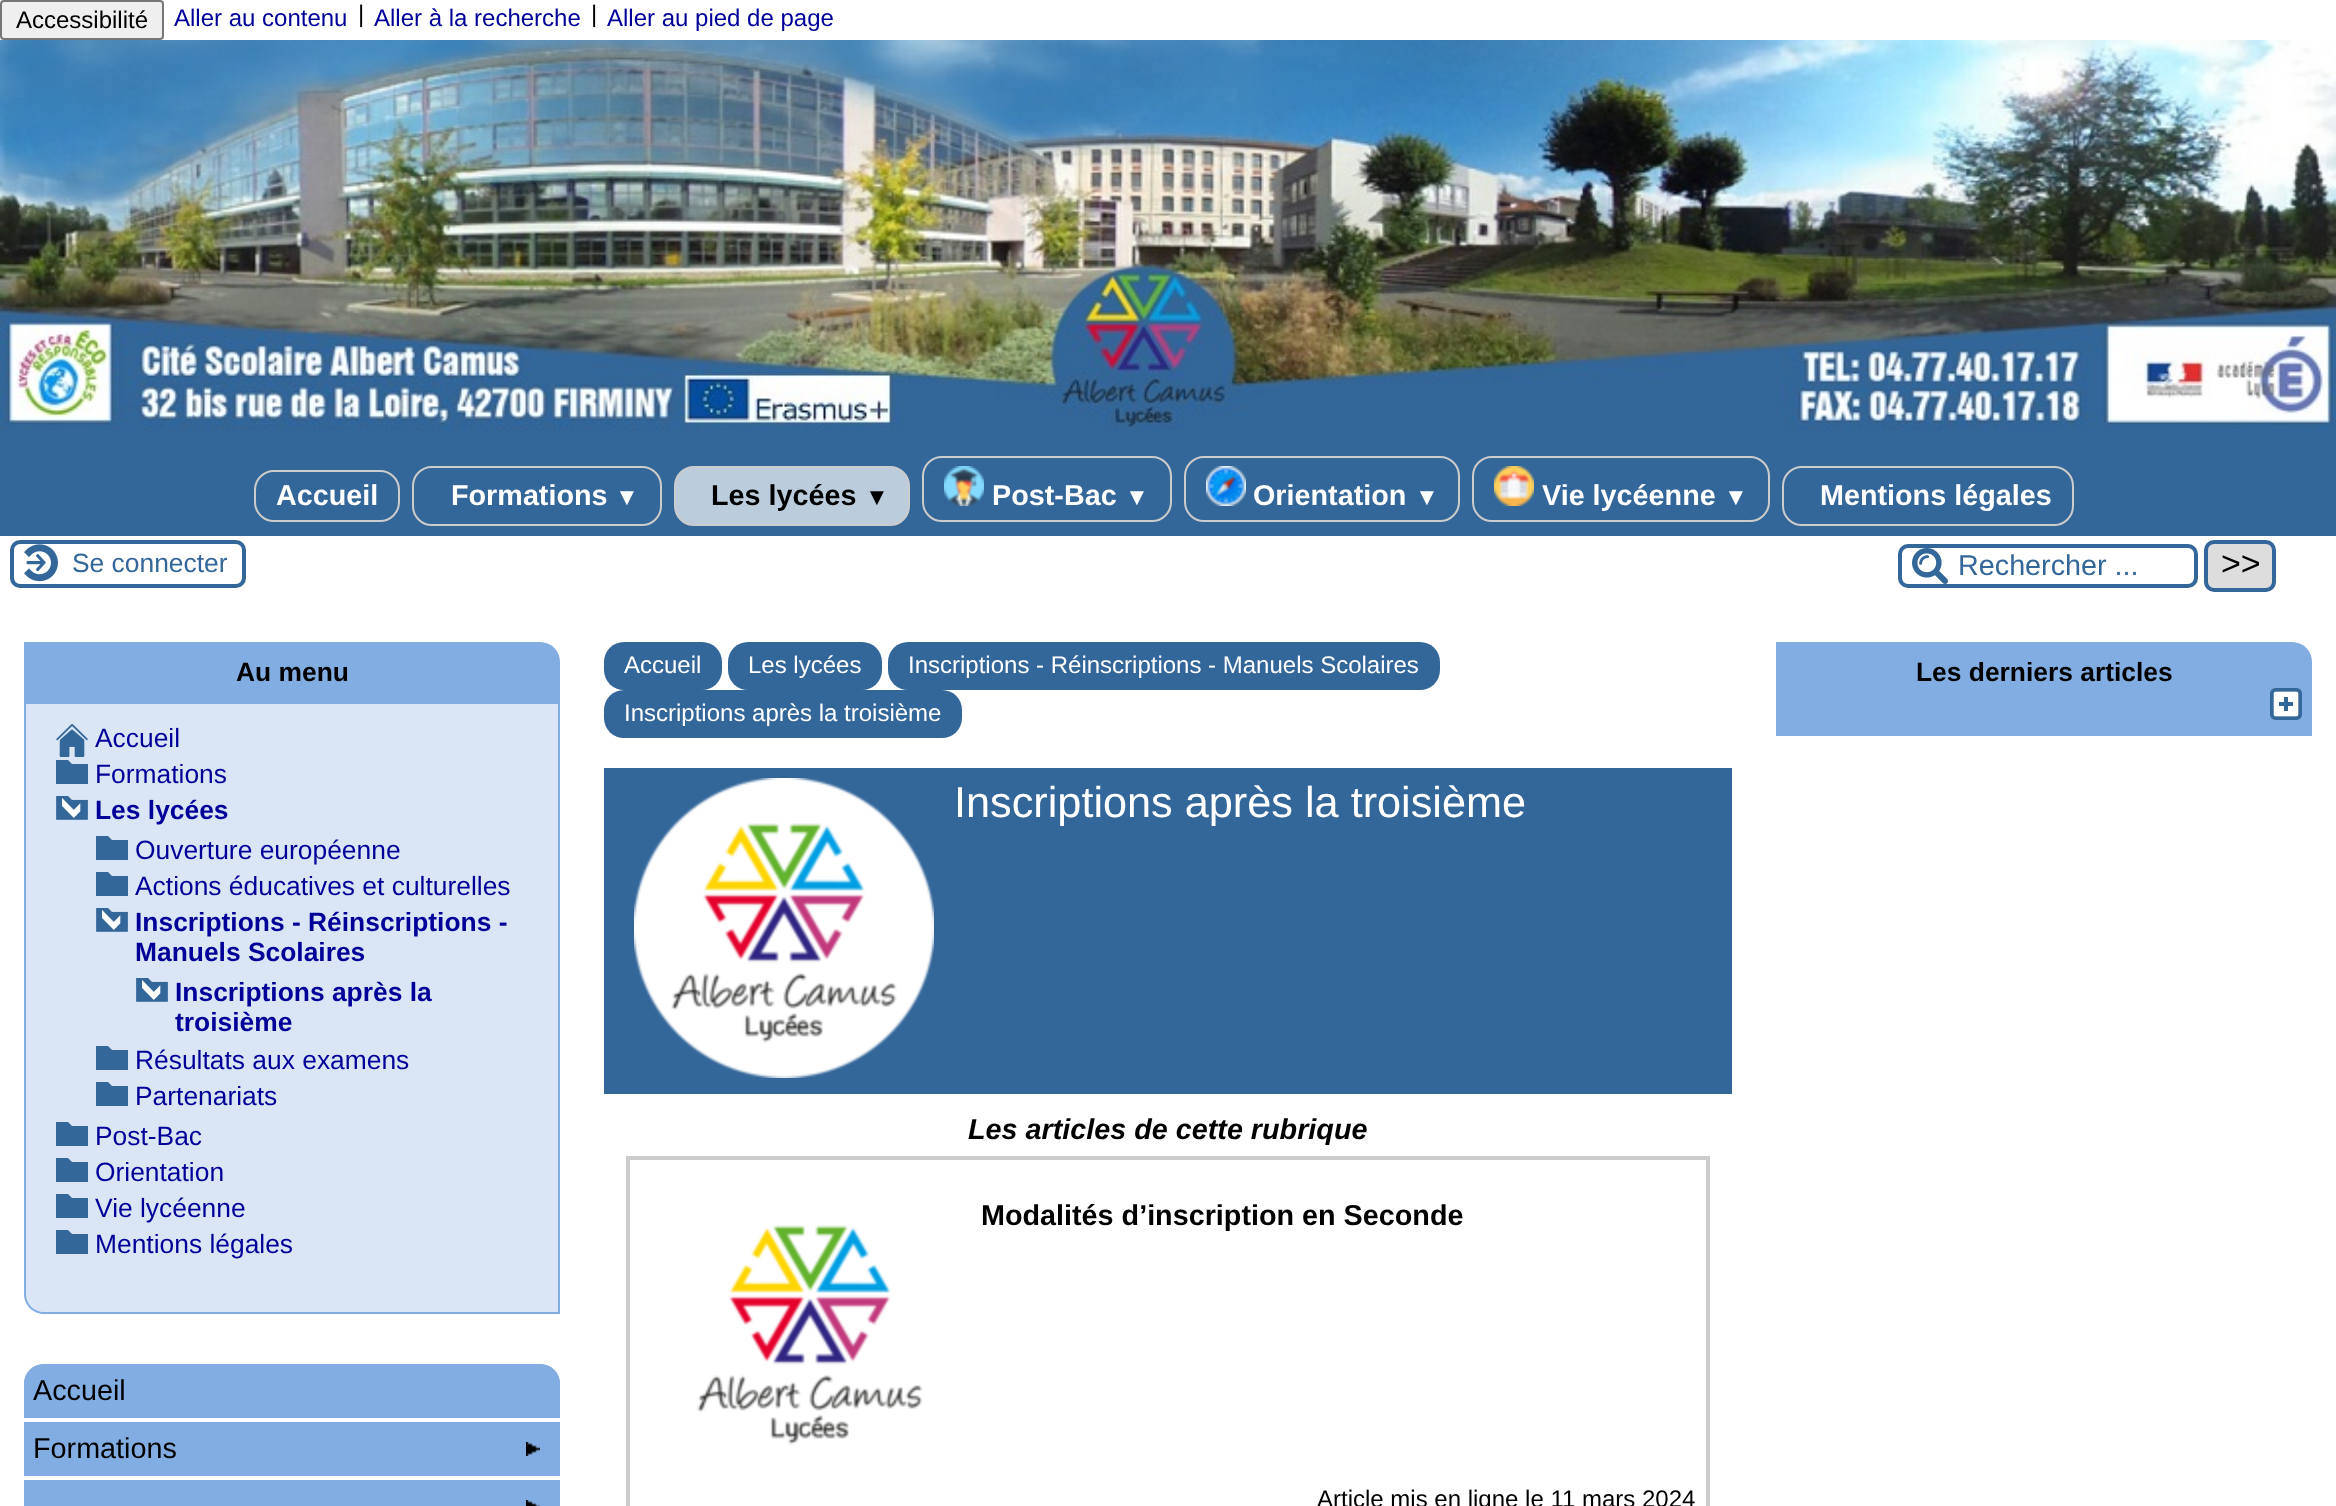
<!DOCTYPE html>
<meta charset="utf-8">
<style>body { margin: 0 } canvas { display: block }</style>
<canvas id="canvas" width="2336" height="1506"></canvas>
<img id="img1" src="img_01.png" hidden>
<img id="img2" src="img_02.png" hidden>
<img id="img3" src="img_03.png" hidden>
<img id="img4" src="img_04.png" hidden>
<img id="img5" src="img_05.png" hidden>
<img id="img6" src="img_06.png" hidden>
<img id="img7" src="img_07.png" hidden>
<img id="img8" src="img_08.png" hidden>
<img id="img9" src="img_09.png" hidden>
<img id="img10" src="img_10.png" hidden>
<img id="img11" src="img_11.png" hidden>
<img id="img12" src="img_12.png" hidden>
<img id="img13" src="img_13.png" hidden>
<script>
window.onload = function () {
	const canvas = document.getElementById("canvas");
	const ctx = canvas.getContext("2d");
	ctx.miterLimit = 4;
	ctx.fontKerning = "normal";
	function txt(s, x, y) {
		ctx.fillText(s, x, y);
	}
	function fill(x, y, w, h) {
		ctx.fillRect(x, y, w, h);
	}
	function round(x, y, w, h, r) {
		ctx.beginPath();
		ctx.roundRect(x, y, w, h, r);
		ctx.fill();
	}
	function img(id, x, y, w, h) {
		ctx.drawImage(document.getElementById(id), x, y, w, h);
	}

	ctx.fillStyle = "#FFFFFF";
	fill(0, 0, 2336, 1506);
	ctx.fillStyle = "#336699";
	fill(0, 430, 2336, 106);
	ctx.fillStyle = "#EFEFEF";
	ctx.beginPath();
	ctx.roundRect(1, 1, 162, 38, 3);
	ctx.fill();
	ctx.strokeStyle = "#767676";
	ctx.lineWidth = 2;
	ctx.stroke();
	img("img1", 0, 40, 2336, 390);
	ctx.beginPath();
	ctx.roundRect(255, 471, 144, 50, 19);
	ctx.strokeStyle = "#CCCCCC";
	ctx.stroke();
	ctx.beginPath();
	ctx.roundRect(413, 467, 248, 58, 19);
	ctx.stroke();
	ctx.fillStyle = "#BBCCDD";
	ctx.beginPath();
	ctx.roundRect(675, 467, 234, 58, 19);
	ctx.fill();
	ctx.stroke();
	ctx.beginPath();
	ctx.roundRect(923, 457, 248, 64, 19);
	ctx.stroke();
	img("img2", 944, 466, 40, 40);
	ctx.beginPath();
	ctx.roundRect(1185, 457, 274, 64, 19);
	ctx.stroke();
	img("img3", 1206, 466, 40, 40);
	ctx.beginPath();
	ctx.roundRect(1473, 457, 296, 64, 19);
	ctx.stroke();
	img("img4", 1494, 466, 40, 40);
	ctx.beginPath();
	ctx.roundRect(1783, 467, 290, 58, 19);
	ctx.stroke();
	img("img5", 24, 544, 34, 38);
	ctx.beginPath();
	ctx.roundRect(12, 542, 232, 44, 8);
	ctx.strokeStyle = "#336699";
	ctx.lineWidth = 4;
	ctx.stroke();
	img("img6", 1912, 548, 36, 36);
	ctx.beginPath();
	ctx.roundRect(1900, 546, 296, 40, 8);
	ctx.stroke();
	ctx.fillStyle = "#DDDDDD";
	ctx.beginPath();
	ctx.roundRect(2206, 542, 68, 48, 8);
	ctx.fill();
	ctx.stroke();
	ctx.fillStyle = "#82ADE2";
	ctx.beginPath();
	ctx.roundRect(24, 642, 536, 62, [0, 20, 0, 0]);
	ctx.fill();
	ctx.fillStyle = "#DAE6F6";
	ctx.beginPath();
	ctx.roundRect(26, 704, 532, 608, [0, 0, 0, 18]);
	ctx.fill();
	ctx.fillStyle = "#82ADE2";
	ctx.beginPath();
	ctx.moveTo(24, 704);
	ctx.lineTo(560, 704);
	ctx.lineTo(560, 1314);
	ctx.lineTo(44, 1314);
	ctx.bezierCurveTo(33, 1314, 24, 1305, 24, 1294);
	ctx.closePath();
	ctx.moveTo(26, 704);
	ctx.lineTo(558, 704);
	ctx.lineTo(558, 1312);
	ctx.lineTo(44, 1312);
	ctx.bezierCurveTo(34, 1312, 26, 1304, 26, 1294);
	ctx.closePath();
	ctx.fill("evenodd");
	img("img7", 56, 724, 32, 33);
	ctx.fillStyle = "#336699";
	ctx.beginPath();
	ctx.moveTo(88, 784);
	ctx.lineTo(88, 764);
	ctx.lineTo(72, 764);
	ctx.lineTo(68, 760);
	ctx.lineTo(56, 760);
	ctx.lineTo(56, 784);
	ctx.closePath();
	ctx.fill();
	img("img8", 56, 796, 32, 24);
	ctx.beginPath();
	ctx.moveTo(128, 860);
	ctx.lineTo(128, 840);
	ctx.lineTo(112, 840);
	ctx.lineTo(108, 836);
	ctx.lineTo(96, 836);
	ctx.lineTo(96, 860);
	ctx.closePath();
	ctx.moveTo(128, 896);
	ctx.lineTo(128, 876);
	ctx.lineTo(112, 876);
	ctx.lineTo(108, 872);
	ctx.lineTo(96, 872);
	ctx.lineTo(96, 896);
	ctx.closePath();
	ctx.fill();
	img("img8", 96, 908, 32, 24);
	img("img8", 136, 978, 32, 24);
	ctx.beginPath();
	ctx.moveTo(128, 1070);
	ctx.lineTo(128, 1050);
	ctx.lineTo(112, 1050);
	ctx.lineTo(108, 1046);
	ctx.lineTo(96, 1046);
	ctx.lineTo(96, 1070);
	ctx.closePath();
	ctx.moveTo(128, 1106);
	ctx.lineTo(128, 1086);
	ctx.lineTo(112, 1086);
	ctx.lineTo(108, 1082);
	ctx.lineTo(96, 1082);
	ctx.lineTo(96, 1106);
	ctx.closePath();
	ctx.fill();
	ctx.beginPath();
	ctx.moveTo(88, 1146);
	ctx.lineTo(88, 1126);
	ctx.lineTo(72, 1126);
	ctx.lineTo(68, 1122);
	ctx.lineTo(56, 1122);
	ctx.lineTo(56, 1146);
	ctx.closePath();
	ctx.moveTo(88, 1182);
	ctx.lineTo(88, 1162);
	ctx.lineTo(72, 1162);
	ctx.lineTo(68, 1158);
	ctx.lineTo(56, 1158);
	ctx.lineTo(56, 1182);
	ctx.closePath();
	ctx.fill();
	ctx.beginPath();
	ctx.moveTo(88, 1218);
	ctx.lineTo(88, 1198);
	ctx.lineTo(72, 1198);
	ctx.lineTo(68, 1194);
	ctx.lineTo(56, 1194);
	ctx.lineTo(56, 1218);
	ctx.closePath();
	ctx.moveTo(88, 1254);
	ctx.lineTo(88, 1234);
	ctx.lineTo(72, 1234);
	ctx.lineTo(68, 1230);
	ctx.lineTo(56, 1230);
	ctx.lineTo(56, 1254);
	ctx.closePath();
	ctx.fill();
	ctx.fillStyle = "#82ADE2";
	round(24, 1364, 536, 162, 20);
	ctx.fillStyle = "#FFFFFF";
	fill(24, 1418, 536, 4);
	ctx.fillStyle = "#82ADE2";
	ctx.beginPath();
	ctx.roundRect(24, 1364, 536, 54, [20, 20, 0, 0]);
	ctx.fill();
	ctx.fillStyle = "#FFFFFF";
	fill(24, 1476, 536, 4);
	img("img9", 526, 1442, 14, 14);
	img("img10", 526, 1500, 14, 6);
	ctx.fillStyle = "#336699";
	round(604, 642, 118, 48, 20);
	round(728, 642, 154, 48, 20);
	round(888, 642, 552, 48, 20);
	round(604, 690, 358, 48, 20);
	fill(604, 768, 1128, 326);
	img("img11", 634, 778, 300, 300);
	ctx.strokeStyle = "#CCCCCC";
	ctx.strokeRect(628, 1158, 1080, 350);
	img("img12", 697, 1225, 226, 220);
	ctx.fillStyle = "#82ADE2";
	ctx.beginPath();
	ctx.roundRect(1776, 642, 536, 94, [0, 20, 0, 0]);
	ctx.fill();
	img("img13", 2270, 688, 32, 32);
	ctx.font = "24px Liberation Sans";
	ctx.fillStyle = "#000000";
	txt("Accessibilité", 16, 28);
	ctx.fillStyle = "#000099";
	txt("Aller au contenu", 174, 26);
	ctx.fillStyle = "#000000";
	txt("|", 358, 22);
	ctx.fillStyle = "#000099";
	txt("Aller à la recherche", 374, 26);
	ctx.fillStyle = "#000000";
	txt("|", 591, 22);
	ctx.fillStyle = "#000099";
	txt("Aller au pied de page", 607, 26);
	ctx.font = "bold 28.75px Liberation Sans";
	ctx.fillStyle = "#FFFFFF";
	txt("Accueil", 276, 505);
	txt("Formations", 451, 505);
	ctx.font = "bold 24px Liberation Sans";
	txt("▼", 615, 505);
	ctx.font = "bold 28.75px Liberation Sans";
	ctx.fillStyle = "#000000";
	txt("Les lycées", 711, 505);
	ctx.font = "bold 24px Liberation Sans";
	txt("▼", 865, 505);
	ctx.font = "bold 28.75px Liberation Sans";
	ctx.fillStyle = "#FFFFFF";
	txt("Post-Bac", 992, 505);
	ctx.font = "bold 24px Liberation Sans";
	txt("▼", 1125, 505);
	ctx.font = "bold 28.75px Liberation Sans";
	txt("Orientation", 1253, 505);
	ctx.font = "bold 24px Liberation Sans";
	txt("▼", 1415, 505);
	ctx.font = "bold 28.75px Liberation Sans";
	txt("Vie lycéenne", 1542, 505);
	ctx.font = "bold 24px Liberation Sans";
	txt("▼", 1724, 505);
	ctx.font = "bold 28.75px Liberation Sans";
	txt("Mentions légales", 1820, 505);
	ctx.font = "26.4px Liberation Sans";
	ctx.fillStyle = "#336699";
	txt("Se connecter", 72, 572);
	ctx.font = "28.75px Liberation Sans";
	txt("Rechercher ...", 1958, 575);
	ctx.font = "34px Liberation Sans";
	ctx.fillStyle = "#000000";
	txt(">>", 2221, 575);
	ctx.font = "bold 26.4px Liberation Sans";
	txt("Au menu", 236, 681);
	ctx.font = "26.4px Liberation Sans";
	ctx.fillStyle = "#000099";
	txt("Accueil", 95, 747);
	txt("Formations", 95, 783);
	ctx.font = "bold 26.4px Liberation Sans";
	txt("Les lycées", 95, 819);
	ctx.font = "26.4px Liberation Sans";
	txt("Ouverture européenne", 135, 859);
	txt("Actions éducatives et culturelles", 135, 895);
	ctx.font = "bold 26.4px Liberation Sans";
	txt("Inscriptions - Réinscriptions -", 135, 931);
	txt("Manuels Scolaires", 135, 961);
	txt("Inscriptions après la", 175, 1001);
	txt("troisième", 175, 1031);
	ctx.font = "26.4px Liberation Sans";
	txt("Résultats aux examens", 135, 1069);
	txt("Partenariats", 135, 1105);
	txt("Post-Bac", 95, 1145);
	txt("Orientation", 95, 1181);
	txt("Vie lycéenne", 95, 1217);
	txt("Mentions légales", 95, 1253);
	ctx.font = "28.75px Liberation Sans";
	ctx.fillStyle = "#000000";
	txt("Accueil", 33, 1400);
	txt("Formations", 33, 1458);
	ctx.font = "24px Liberation Sans";
	ctx.fillStyle = "#FFFFFF";
	txt("Accueil", 624, 673);
	txt("Les lycées", 748, 673);
	txt("Inscriptions - Réinscriptions - Manuels Scolaires", 908, 673);
	txt("Inscriptions après la troisième", 624, 721);
	ctx.font = "43.25px Liberation Sans";
	txt("Inscriptions après la troisième", 954, 817);
	ctx.font = "italic bold 28.75px Liberation Sans";
	ctx.fillStyle = "#000000";
	txt("Les articles de cette rubrique", 968, 1139);
	ctx.font = "bold 28.75px Liberation Sans";
	txt("Modalités d’inscription en Seconde", 981, 1225);
	ctx.font = "24px Liberation Sans";
	txt("Article mis en ligne le 11 mars 2024", 1317, 1507);
	ctx.font = "bold 26.4px Liberation Sans";
	txt("Les derniers articles", 1916, 681);
};
</script>
